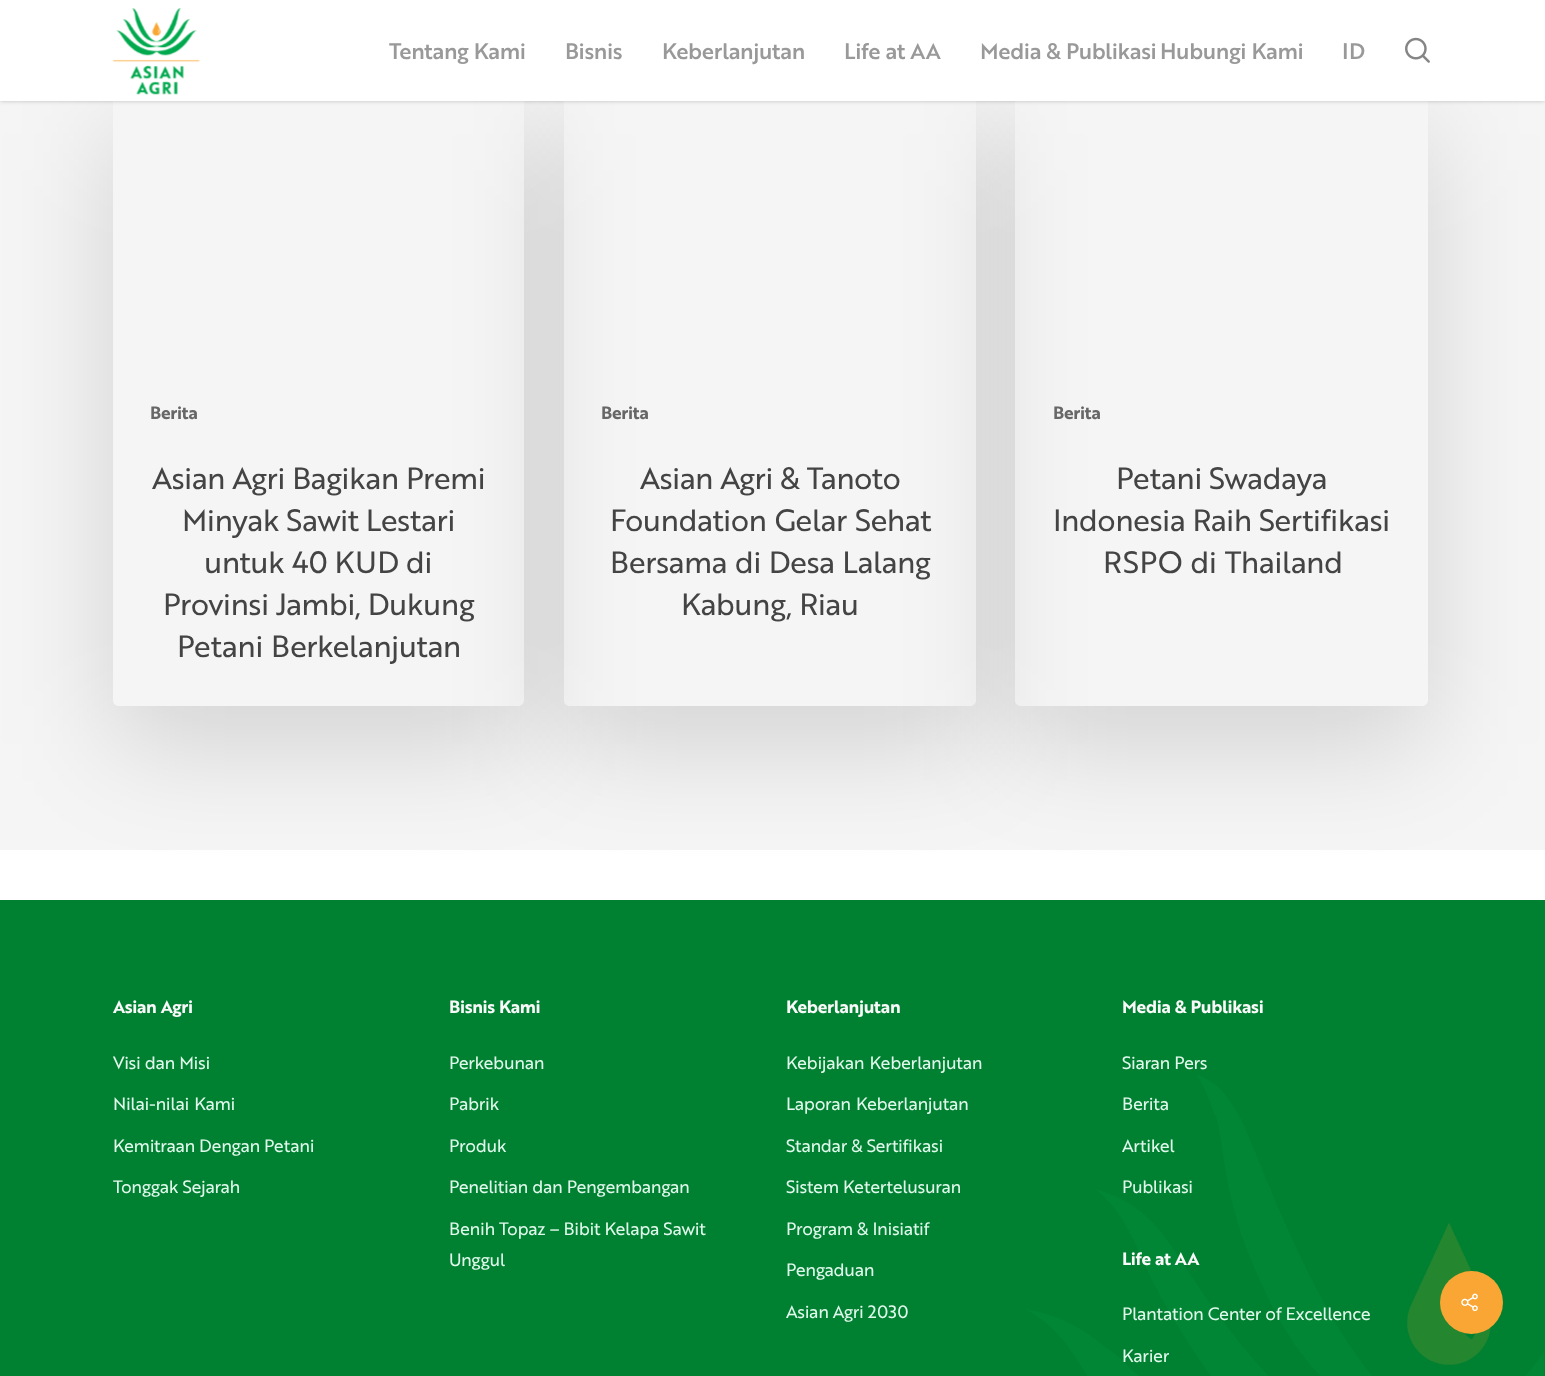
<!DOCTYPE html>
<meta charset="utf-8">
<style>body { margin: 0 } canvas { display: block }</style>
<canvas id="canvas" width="1545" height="1376"></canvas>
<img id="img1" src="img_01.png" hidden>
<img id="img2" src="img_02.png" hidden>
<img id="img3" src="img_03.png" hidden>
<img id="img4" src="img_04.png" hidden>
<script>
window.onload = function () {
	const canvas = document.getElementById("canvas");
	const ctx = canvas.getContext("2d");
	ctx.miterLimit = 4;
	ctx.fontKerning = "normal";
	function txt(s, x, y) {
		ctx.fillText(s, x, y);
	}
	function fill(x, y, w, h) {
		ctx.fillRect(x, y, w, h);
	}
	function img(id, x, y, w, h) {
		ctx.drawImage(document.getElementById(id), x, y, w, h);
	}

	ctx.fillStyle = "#FFFFFF";
	fill(0, 0, 1545, 1376);
	ctx.fillStyle = "#F5F5F5";
	fill(0, 101, 1545, 749);
	ctx.fillStyle = "rgba(0, 0, 0, 0.22)";
	ctx.filter = "blur(2px)";
	ctx.beginPath();
	ctx.rect(0, -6, 1545, 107);
	ctx.fill();
	ctx.filter = "none";
	ctx.save();
	ctx.beginPath();
	ctx.moveTo(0, 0);
	ctx.lineTo(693, 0);
	ctx.lineTo(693, 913);
	ctx.lineTo(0, 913);
	ctx.closePath();
	ctx.moveTo(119, 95);
	ctx.lineTo(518, 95);
	ctx.bezierCurveTo(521.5, 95, 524, 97.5, 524, 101);
	ctx.lineTo(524, 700);
	ctx.bezierCurveTo(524, 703.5, 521.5, 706, 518, 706);
	ctx.lineTo(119, 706);
	ctx.bezierCurveTo(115.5, 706, 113, 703.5, 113, 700);
	ctx.lineTo(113, 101);
	ctx.bezierCurveTo(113, 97.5, 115.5, 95, 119, 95);
	ctx.closePath();
	ctx.clip("evenodd");
	ctx.fillStyle = "rgba(0, 0, 0, 0.14)";
	ctx.filter = "blur(56px)";
	ctx.beginPath();
	ctx.roundRect(113, 133, 411, 611, 6);
	ctx.fill();
	ctx.filter = "none";
	ctx.restore();
	ctx.save();
	ctx.beginPath();
	ctx.moveTo(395, 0);
	ctx.lineTo(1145, 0);
	ctx.lineTo(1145, 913);
	ctx.lineTo(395, 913);
	ctx.closePath();
	ctx.moveTo(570, 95);
	ctx.lineTo(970, 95);
	ctx.bezierCurveTo(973.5, 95, 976, 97.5, 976, 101);
	ctx.lineTo(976, 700);
	ctx.bezierCurveTo(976, 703.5, 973.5, 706, 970, 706);
	ctx.lineTo(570, 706);
	ctx.bezierCurveTo(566.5, 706, 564, 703.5, 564, 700);
	ctx.lineTo(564, 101);
	ctx.bezierCurveTo(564, 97.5, 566.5, 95, 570, 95);
	ctx.closePath();
	ctx.clip("evenodd");
	ctx.fillStyle = "rgba(0, 0, 0, 0.14)";
	ctx.filter = "blur(56px)";
	ctx.beginPath();
	ctx.roundRect(564, 133, 412, 611, 6);
	ctx.fill();
	ctx.filter = "none";
	ctx.restore();
	ctx.save();
	ctx.beginPath();
	ctx.moveTo(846, 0);
	ctx.lineTo(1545, 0);
	ctx.lineTo(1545, 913);
	ctx.lineTo(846, 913);
	ctx.closePath();
	ctx.moveTo(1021, 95);
	ctx.lineTo(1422, 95);
	ctx.bezierCurveTo(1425.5, 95, 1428, 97.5, 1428, 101);
	ctx.lineTo(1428, 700);
	ctx.bezierCurveTo(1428, 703.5, 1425.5, 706, 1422, 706);
	ctx.lineTo(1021, 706);
	ctx.bezierCurveTo(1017.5, 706, 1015, 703.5, 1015, 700);
	ctx.lineTo(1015, 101);
	ctx.bezierCurveTo(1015, 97.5, 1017.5, 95, 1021, 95);
	ctx.closePath();
	ctx.clip("evenodd");
	ctx.fillStyle = "rgba(0, 0, 0, 0.14)";
	ctx.filter = "blur(56px)";
	ctx.beginPath();
	ctx.roundRect(1015, 133, 413, 611, 6);
	ctx.fill();
	ctx.filter = "none";
	ctx.restore();
	ctx.fillStyle = "#FFFFFF";
	fill(0, 0, 1545, 101);
	img("img1", 112, 8, 88, 87);
	img("img2", 1405, 37, 25, 26);
	ctx.fillStyle = "#008031";
	fill(0, 900, 1545, 476);
	img("img3", 1026, 1075, 518, 301);
	ctx.fillStyle = "#FAA634";
	ctx.beginPath();
	ctx.arc(1471.5, 1302.5, 31.5, 0, Math.PI * 2);
	ctx.fill();
	img("img4", 1461, 1293, 17, 19);
	ctx.letterSpacing = "-0.4px";
	ctx.font = "500 22px 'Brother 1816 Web'";
	ctx.fillStyle = "#999999";
	txt("Tentang Kami", 389, 59);
	txt("Bisnis", 565, 59);
	txt("Keberlanjutan", 662, 59);
	txt("Life at AA", 844, 59);
	txt("Media & Publikasi", 980, 59);
	txt("Hubungi Kami", 1160, 59);
	txt("ID", 1342, 59);
	ctx.letterSpacing = "-0.35px";
	ctx.font = "bold 17.5px 'Brother 1816 Web'";
	ctx.fillStyle = "#676767";
	txt("Berita", 150, 419);
	ctx.letterSpacing = "-0.6px";
	ctx.font = "30px 'Brother 1816 Web'";
	ctx.fillStyle = "#444444";
	txt("Asian Agri Bagikan Premi", 152, 489);
	txt("Minyak Sawit Lestari", 182, 531);
	txt("untuk 40 KUD di", 204, 573);
	txt("Provinsi Jambi, Dukung", 163, 615);
	ctx.wordSpacing = "1px";
	txt("Petani Berkelanjutan", 177, 657);
	ctx.letterSpacing = "-0.35px";
	ctx.wordSpacing = "0px";
	ctx.font = "bold 17.5px 'Brother 1816 Web'";
	ctx.fillStyle = "#676767";
	txt("Berita", 601, 419);
	ctx.letterSpacing = "-0.6px";
	ctx.font = "30px 'Brother 1816 Web'";
	ctx.fillStyle = "#444444";
	txt("Asian Agri & Tanoto", 640, 489);
	ctx.wordSpacing = "1px";
	txt("Foundation Gelar Sehat", 610, 531);
	ctx.wordSpacing = "0.5px";
	txt("Bersama di Desa Lalang", 610, 573);
	ctx.wordSpacing = "0px";
	txt("Kabung, Riau", 681, 615);
	ctx.letterSpacing = "-0.35px";
	ctx.font = "bold 17.5px 'Brother 1816 Web'";
	ctx.fillStyle = "#676767";
	txt("Berita", 1053, 419);
	ctx.letterSpacing = "-0.6px";
	ctx.font = "30px 'Brother 1816 Web'";
	ctx.fillStyle = "#444444";
	txt("Petani Swadaya", 1116, 489);
	txt("Indonesia Raih Sertifikasi", 1053, 531);
	ctx.wordSpacing = "1px";
	txt("RSPO di Thailand", 1103, 573);
	ctx.letterSpacing = "-0.35px";
	ctx.wordSpacing = "0px";
	ctx.font = "bold 17.5px 'Brother 1816 Web'";
	ctx.fillStyle = "#F9F9F9";
	txt("Asian Agri", 113, 1013);
	ctx.font = "17.5px 'Brother 1816 Web'";
	ctx.fillStyle = "#E1F9EC";
	txt("Visi dan Misi", 113, 1069);
	ctx.wordSpacing = "1px";
	txt("Nilai-nilai Kami", 113, 1110);
	ctx.wordSpacing = "0px";
	txt("Kemitraan Dengan Petani", 113, 1152);
	txt("Tonggak Sejarah", 113, 1193);
	ctx.font = "bold 17.5px 'Brother 1816 Web'";
	ctx.fillStyle = "#F9F9F9";
	txt("Bisnis Kami", 449, 1013);
	ctx.font = "17.5px 'Brother 1816 Web'";
	ctx.fillStyle = "#E1F9EC";
	txt("Perkebunan", 449, 1069);
	txt("Pabrik", 449, 1110);
	txt("Produk", 449, 1152);
	txt("Penelitian dan Pengembangan", 449, 1193);
	txt("Benih Topaz – Bibit Kelapa Sawit", 449, 1235);
	txt("Unggul", 449, 1266);
	ctx.font = "bold 17.5px 'Brother 1816 Web'";
	ctx.fillStyle = "#F9F9F9";
	txt("Keberlanjutan", 786, 1013);
	ctx.wordSpacing = "1px";
	ctx.font = "17.5px 'Brother 1816 Web'";
	ctx.fillStyle = "#E1F9EC";
	txt("Kebijakan Keberlanjutan", 786, 1069);
	txt("Laporan Keberlanjutan", 786, 1110);
	ctx.wordSpacing = "0px";
	txt("Standar & Sertifikasi", 786, 1152);
	txt("Sistem Ketertelusuran", 786, 1193);
	txt("Program & Inisiatif", 786, 1235);
	txt("Pengaduan", 786, 1276);
	txt("Asian Agri 2030", 786, 1318);
	ctx.font = "bold 17.5px 'Brother 1816 Web'";
	ctx.fillStyle = "#F9F9F9";
	txt("Media & Publikasi", 1122, 1013);
	ctx.font = "17.5px 'Brother 1816 Web'";
	ctx.fillStyle = "#E1F9EC";
	txt("Siaran Pers", 1122, 1069);
	txt("Berita", 1122, 1110);
	txt("Artikel", 1122, 1152);
	txt("Publikasi", 1122, 1193);
	ctx.font = "bold 17.5px 'Brother 1816 Web'";
	ctx.fillStyle = "#F9F9F9";
	txt("Life at AA", 1122, 1265);
	ctx.font = "17.5px 'Brother 1816 Web'";
	ctx.fillStyle = "#E1F9EC";
	txt("Plantation Center of Excellence", 1122, 1320);
	txt("Karier", 1122, 1362);
};
</script>
